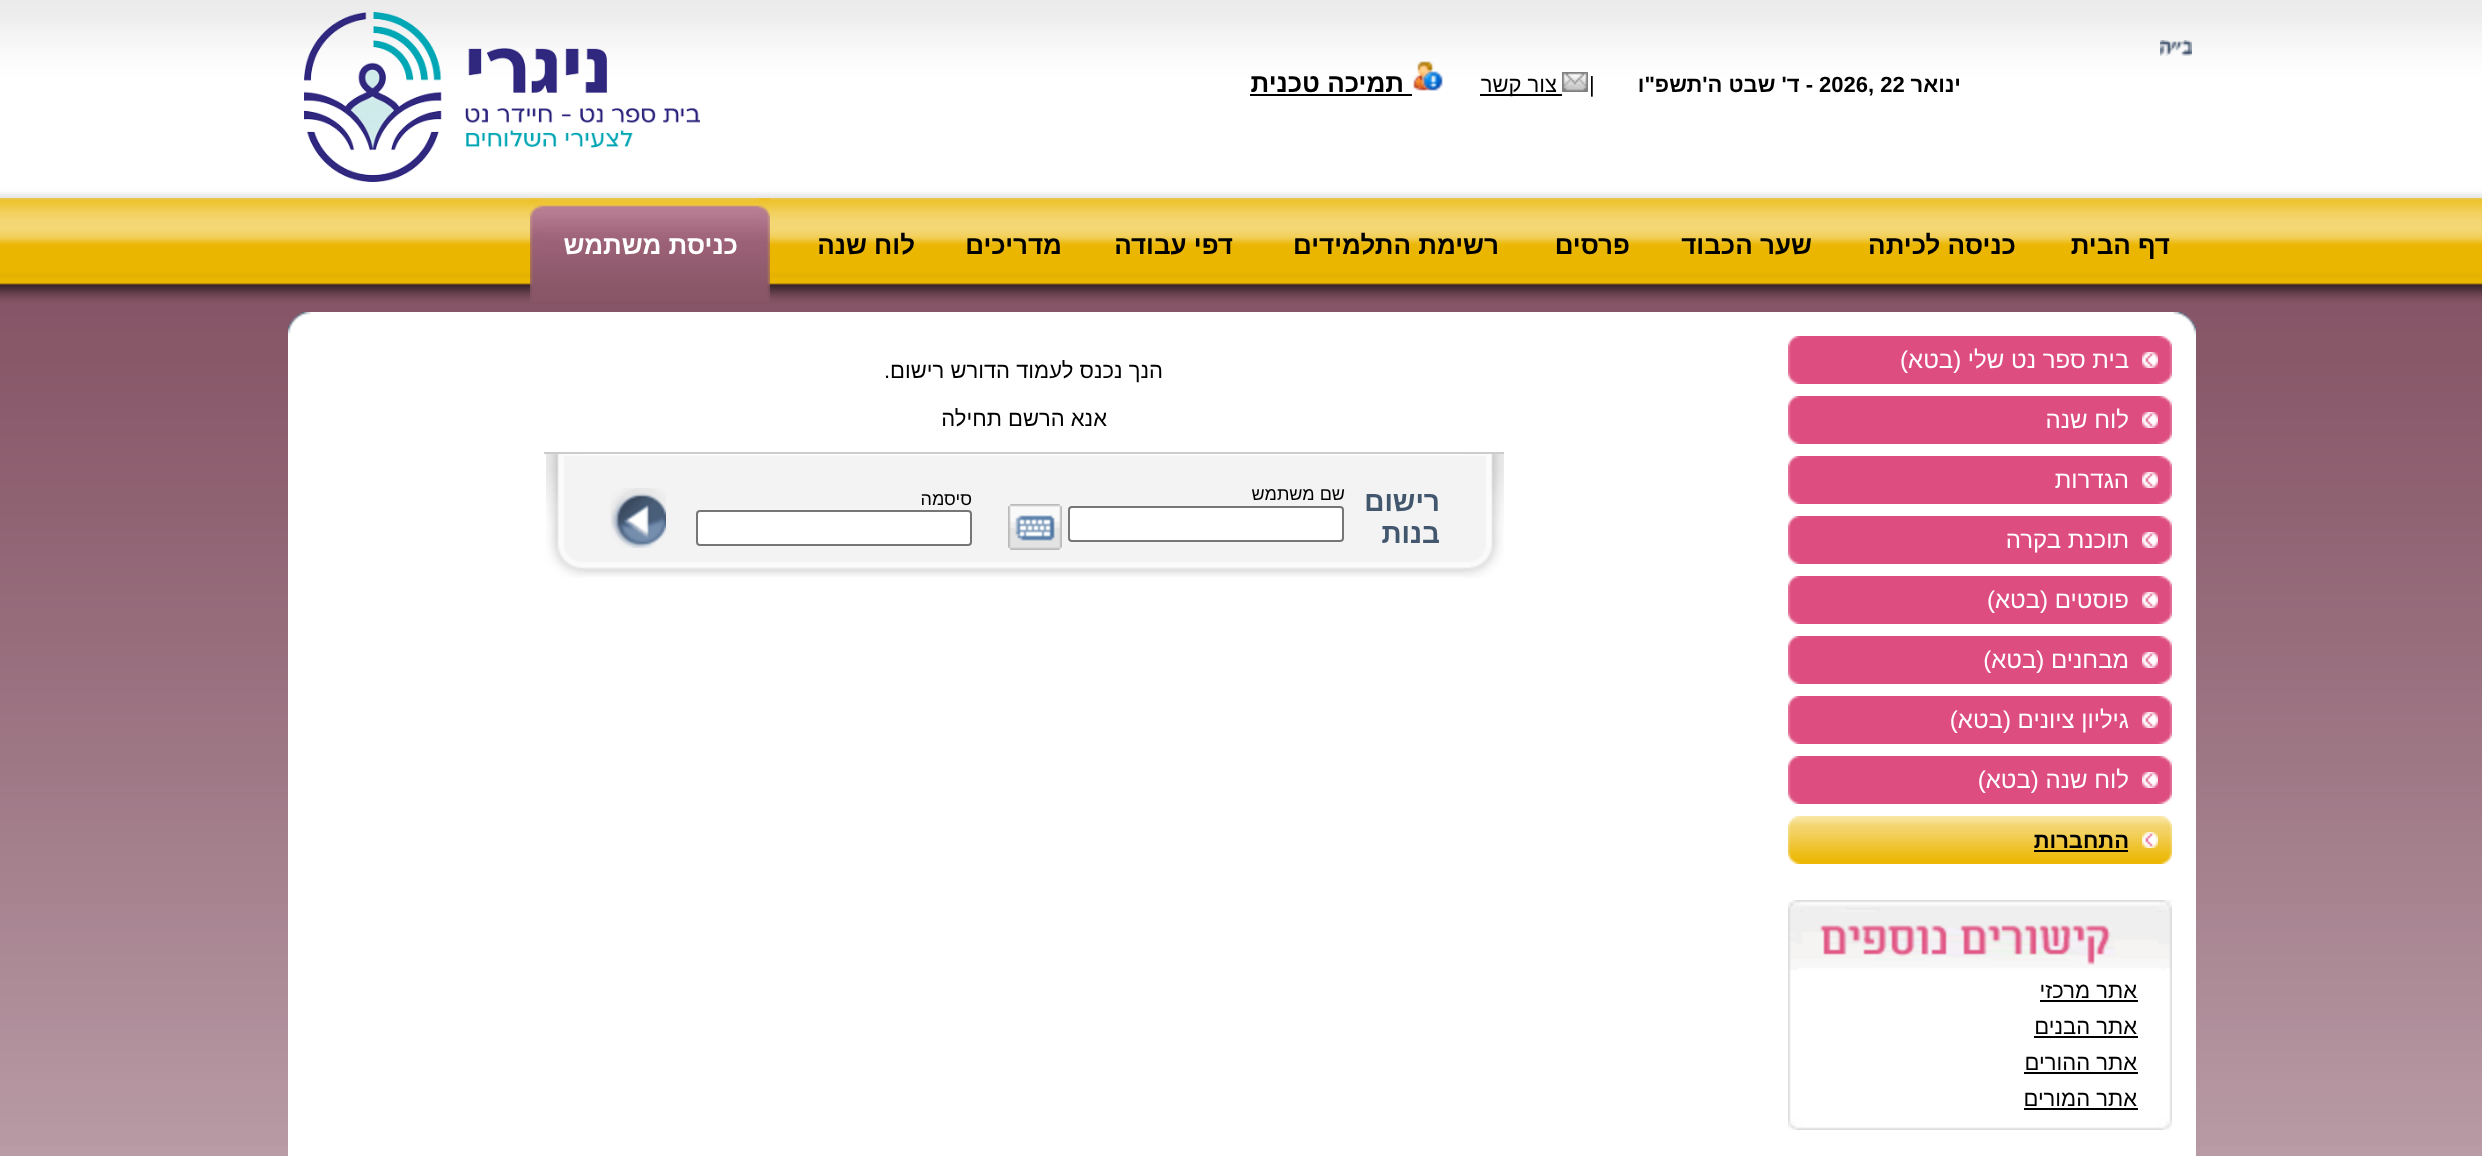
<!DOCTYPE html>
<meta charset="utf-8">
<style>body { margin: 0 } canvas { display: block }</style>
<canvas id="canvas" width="2482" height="1156"></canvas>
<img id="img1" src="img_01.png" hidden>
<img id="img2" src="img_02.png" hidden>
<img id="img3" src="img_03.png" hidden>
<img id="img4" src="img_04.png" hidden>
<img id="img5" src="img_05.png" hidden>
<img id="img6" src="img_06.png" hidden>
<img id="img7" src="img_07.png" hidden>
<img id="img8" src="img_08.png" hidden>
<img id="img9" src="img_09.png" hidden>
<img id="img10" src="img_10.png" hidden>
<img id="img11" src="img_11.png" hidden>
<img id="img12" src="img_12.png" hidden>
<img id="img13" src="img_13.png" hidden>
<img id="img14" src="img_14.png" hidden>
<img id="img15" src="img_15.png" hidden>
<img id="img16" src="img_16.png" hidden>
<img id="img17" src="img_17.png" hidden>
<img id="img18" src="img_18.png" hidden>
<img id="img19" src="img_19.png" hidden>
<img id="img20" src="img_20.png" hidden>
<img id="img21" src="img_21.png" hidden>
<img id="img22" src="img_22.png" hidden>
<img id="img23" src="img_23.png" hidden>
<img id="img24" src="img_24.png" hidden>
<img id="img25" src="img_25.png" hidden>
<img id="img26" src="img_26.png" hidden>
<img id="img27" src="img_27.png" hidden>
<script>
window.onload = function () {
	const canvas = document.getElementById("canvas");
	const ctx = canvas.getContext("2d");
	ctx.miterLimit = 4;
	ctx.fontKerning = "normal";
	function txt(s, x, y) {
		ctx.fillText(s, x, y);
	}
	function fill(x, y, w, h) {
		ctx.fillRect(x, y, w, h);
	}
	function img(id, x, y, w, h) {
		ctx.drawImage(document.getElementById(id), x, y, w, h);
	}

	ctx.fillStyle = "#FFFFFF";
	fill(0, 0, 2482, 1156);
	img("img1", 0, 0, 2482, 198);
	img("img2", 2160, 40, 32, 16);
	img("img3", 304, 12, 396, 170);
	img("img4", 1562, 72, 26, 20);
	ctx.fillStyle = "#000000";
	fill(1480, 94, 82, 2);
	img("img5", 1413, 61, 30, 30);
	fill(1250, 94, 162, 2);
	img("img6", 0, 198, 2482, 114);
	img("img7", 758, 198, 12, 104);
	img("img8", 542, 198, 216, 104);
	img("img9", 530, 198, 12, 104);
	img("img10", 0, 312, 2482, 844);
	img("img11", 2172, 312, 24, 24);
	ctx.fillStyle = "#FFFFFF";
	fill(312, 312, 1860, 24);
	img("img12", 288, 312, 24, 24);
	fill(288, 336, 1908, 818);
	img("img13", 2158, 336, 14, 48);
	ctx.fillStyle = "#DE4D7F";
	fill(1800, 336, 358, 48);
	img("img14", 2142, 352, 16, 16);
	img("img15", 1788, 336, 12, 48);
	img("img13", 2158, 396, 14, 48);
	fill(1800, 396, 358, 48);
	img("img14", 2142, 412, 16, 16);
	img("img15", 1788, 396, 12, 48);
	img("img13", 2158, 456, 14, 48);
	fill(1800, 456, 358, 48);
	img("img14", 2142, 472, 16, 16);
	img("img15", 1788, 456, 12, 48);
	img("img13", 2158, 516, 14, 48);
	fill(1800, 516, 358, 48);
	img("img14", 2142, 532, 16, 16);
	img("img15", 1788, 516, 12, 48);
	img("img13", 2158, 576, 14, 48);
	fill(1800, 576, 358, 48);
	img("img14", 2142, 592, 16, 16);
	img("img15", 1788, 576, 12, 48);
	img("img13", 2158, 636, 14, 48);
	fill(1800, 636, 358, 48);
	img("img14", 2142, 652, 16, 16);
	img("img15", 1788, 636, 12, 48);
	img("img13", 2158, 696, 14, 48);
	fill(1800, 696, 358, 48);
	img("img14", 2142, 712, 16, 16);
	img("img15", 1788, 696, 12, 48);
	img("img13", 2158, 756, 14, 48);
	fill(1800, 756, 358, 48);
	img("img14", 2142, 772, 16, 16);
	img("img15", 1788, 756, 12, 48);
	img("img16", 2158, 816, 14, 48);
	img("img17", 1800, 816, 358, 48);
	img("img18", 2142, 832, 16, 16);
	ctx.fillStyle = "#000000";
	fill(2034, 850, 94, 2);
	img("img19", 1788, 816, 12, 48);
	img("img20", 1788, 900, 384, 72);
	img("img21", 1788, 972, 384, 144);
	fill(2040, 1000, 98, 2);
	fill(2034, 1036, 104, 2);
	fill(2024, 1072, 114, 2);
	fill(2024, 1108, 114, 2);
	img("img22", 1788, 1116, 384, 14);
	ctx.fillStyle = "#CCCCCC";
	fill(544, 452, 960, 2);
	img("img23", 1464, 454, 40, 124);
	img("img24", 584, 455, 880, 122);
	ctx.fillStyle = "#FFFFFF";
	ctx.beginPath();
	ctx.roundRect(1069, 507, 274, 34, 3);
	ctx.fill();
	ctx.strokeStyle = "#767676";
	ctx.lineWidth = 2;
	ctx.stroke();
	img("img25", 1008, 504, 54, 46);
	ctx.beginPath();
	ctx.roundRect(697, 511, 274, 34, 3);
	ctx.fill();
	ctx.stroke();
	img("img26", 610, 488, 56, 60);
	img("img27", 546, 454, 38, 124);
	fill(288, 1154, 1908, 2);
	ctx.direction = "rtl";
	ctx.font = "bold 22px Liberation Sans";
	ctx.fillStyle = "#000000";
	txt("ינואר", 1961, 92);
	ctx.direction = "ltr";
	txt("2026, 22", 1819, 92);
	ctx.direction = "rtl";
	txt("- ד' שבט ה'תשפ\"ו", 1813, 92);
	ctx.direction = "ltr";
	ctx.font = "22px Liberation Sans";
	txt("|", 1589, 92);
	ctx.direction = "rtl";
	txt("צור קשר", 1557, 92);
	ctx.font = "bold 26px Liberation Sans";
	txt("תמיכה טכנית", 1404, 92);
	txt("דף הבית", 2170, 254);
	txt("כניסה לכיתה", 2016, 254);
	txt("שער הכבוד", 1812, 254);
	txt("פרסים", 1630, 254);
	txt("רשימת התלמידים", 1499, 254);
	txt("דפי עבודה", 1233, 254);
	txt("מדריכים", 1062, 254);
	txt("לוח שנה", 915, 254);
	ctx.fillStyle = "#FFFFFF";
	txt("כניסת משתמש", 738, 254);
	ctx.font = "24px Liberation Sans";
	txt("בית ספר נט שלי (בטא)", 2129, 368);
	txt("לוח שנה", 2129, 428);
	txt("הגדרות", 2129, 488);
	txt("תוכנת בקרה", 2129, 548);
	txt("פוסטים (בטא)", 2129, 608);
	txt("מבחנים (בטא)", 2129, 668);
	txt("גיליון ציונים (בטא)", 2129, 728);
	txt("לוח שנה (בטא)", 2129, 788);
	ctx.font = "bold 22px Liberation Sans";
	ctx.fillStyle = "#000000";
	txt("התחברות", 2129, 848);
	ctx.font = "22px Liberation Sans";
	txt("אתר מרכזי", 2137, 998);
	txt("אתר הבנים", 2137, 1034);
	txt("אתר ההורים", 2137, 1070);
	txt("אתר המורים", 2137, 1106);
	txt("הנך נכנס לעמוד הדורש רישום.", 1163, 378);
	txt("אנא הרשם תחילה", 1107, 426);
	ctx.font = "bold 28px Liberation Sans";
	ctx.fillStyle = "#42566E";
	txt("רישום", 1440, 511);
	txt("בנות", 1440, 543);
	ctx.font = "18px Liberation Sans";
	ctx.fillStyle = "#000000";
	txt("שם משתמש", 1345, 500);
	txt("סיסמה", 972, 505);
};
</script>
